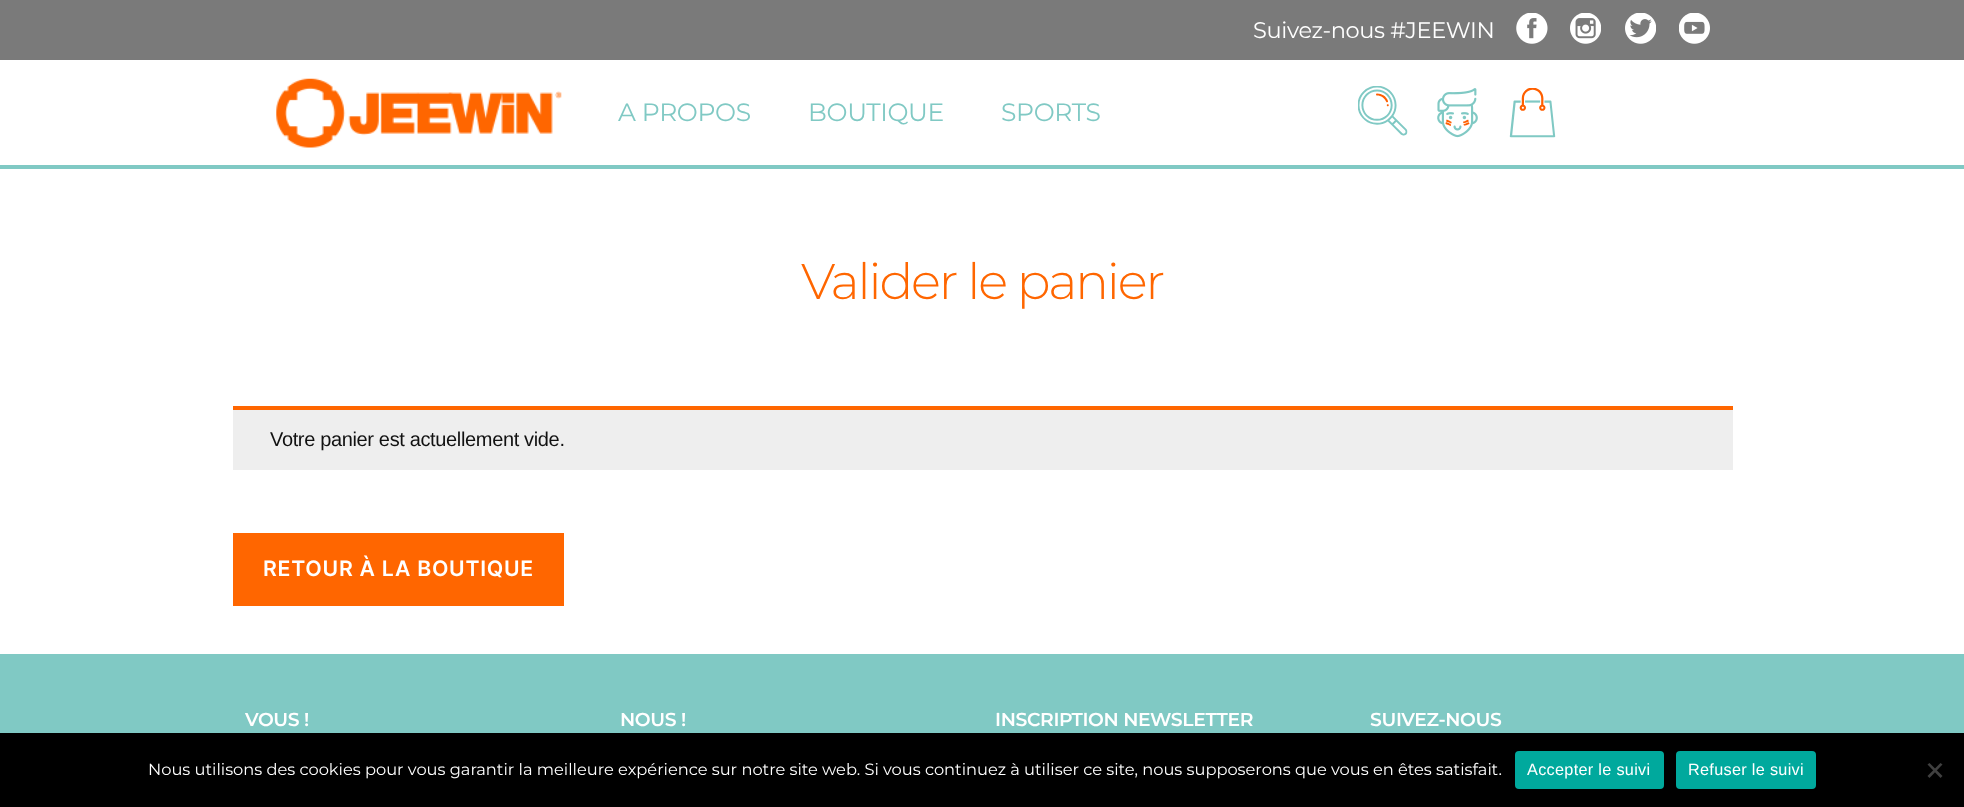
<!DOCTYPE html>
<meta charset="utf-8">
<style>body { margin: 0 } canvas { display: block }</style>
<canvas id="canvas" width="1964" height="807"></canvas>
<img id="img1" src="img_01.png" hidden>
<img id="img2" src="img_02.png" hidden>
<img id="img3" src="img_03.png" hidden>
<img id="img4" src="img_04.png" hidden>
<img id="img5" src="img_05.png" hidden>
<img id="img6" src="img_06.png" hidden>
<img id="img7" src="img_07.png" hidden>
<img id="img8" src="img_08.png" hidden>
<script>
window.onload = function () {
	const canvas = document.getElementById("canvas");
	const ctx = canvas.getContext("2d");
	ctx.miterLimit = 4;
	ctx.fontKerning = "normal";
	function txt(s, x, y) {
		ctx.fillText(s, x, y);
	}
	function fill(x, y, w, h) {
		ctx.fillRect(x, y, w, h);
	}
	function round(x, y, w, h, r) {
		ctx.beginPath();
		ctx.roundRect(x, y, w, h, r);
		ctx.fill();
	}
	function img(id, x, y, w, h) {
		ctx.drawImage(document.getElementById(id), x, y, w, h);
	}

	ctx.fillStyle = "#FFFFFF";
	fill(0, 0, 1964, 807);
	ctx.fillStyle = "#7A7A7A";
	fill(0, 0, 1964, 60);
	img("img1", 1516, 13, 32, 31);
	img("img2", 1570, 13, 31, 31);
	img("img3", 1625, 13, 31, 31);
	img("img4", 1679, 13, 31, 31);
	ctx.fillStyle = "#80C9C4";
	fill(0, 165, 1964, 4);
	img("img5", 276, 78, 286, 70);
	img("img6", 1358, 86, 50, 50);
	img("img7", 1437, 88, 41, 50);
	img("img8", 1509, 88, 47, 50);
	ctx.fillStyle = "#EEEEEE";
	fill(233, 410, 1500, 60);
	ctx.fillStyle = "#FF6600";
	fill(233, 406, 1500, 4);
	fill(233, 533, 331, 73);
	ctx.fillStyle = "#80C9C4";
	fill(0, 654, 1964, 79);
	ctx.fillStyle = "#000000";
	fill(0, 733, 1964, 74);
	ctx.fillStyle = "#00A99D";
	round(1515, 751, 149, 38, 4);
	round(1676, 751, 140, 38, 4);
	ctx.fillStyle = "#404040";
	ctx.beginPath();
	ctx.moveTo(1940.5, 763);
	ctx.lineTo(1942.5, 764.5);
	ctx.lineTo(1929.5, 778);
	ctx.lineTo(1927.5, 776);
	ctx.closePath();
	ctx.fill();
	ctx.beginPath();
	ctx.moveTo(1927.5, 764.5);
	ctx.lineTo(1929.5, 763);
	ctx.lineTo(1942.5, 776);
	ctx.lineTo(1940.5, 778);
	ctx.closePath();
	ctx.fill();
	ctx.letterSpacing = "-0.35px";
	ctx.font = "22.5px Montserrat";
	ctx.fillStyle = "#FFFFFF";
	txt("Suivez-nous #JEEWIN", 1253, 38);
	ctx.font = "25px Montserrat";
	ctx.fillStyle = "#80C9C4";
	txt("A PROPOS", 618, 121);
	txt("BOUTIQUE", 808, 121);
	txt("SPORTS", 1001, 121);
	ctx.letterSpacing = "-2.1px";
	ctx.font = "300 50px Montserrat";
	ctx.fillStyle = "#FF6600";
	txt("Valider le panier", 801, 299);
	ctx.letterSpacing = "-0.35px";
	ctx.font = "20px Liberation Sans";
	ctx.fillStyle = "#111111";
	txt("Votre panier est actuellement vide.", 270, 446);
	ctx.letterSpacing = "0.75px";
	ctx.font = "600 21.25px Inter";
	ctx.fillStyle = "#FFFFFF";
	txt("RETOUR À LA BOUTIQUE", 263, 576);
	ctx.letterSpacing = "-0.35px";
	ctx.font = "600 18.75px Montserrat";
	txt("VOUS !", 245, 726);
	txt("NOUS !", 620, 726);
	txt("INSCRIPTION NEWSLETTER", 995, 726);
	txt("SUIVEZ-NOUS", 1370, 726);
	ctx.letterSpacing = "0px";
	ctx.font = "16.25px Montserrat";
	txt("Nous utilisons des cookies pour vous garantir la meilleure expérience sur notre site web. Si vous continuez à utiliser ce site, nous supposerons que vous en êtes satisfait.", 148, 775);
	ctx.letterSpacing = "0.3px";
	ctx.font = "16.25px Liberation Sans";
	txt("Accepter le suivi", 1527, 775);
	txt("Refuser le suivi", 1688, 775);
};
</script>
